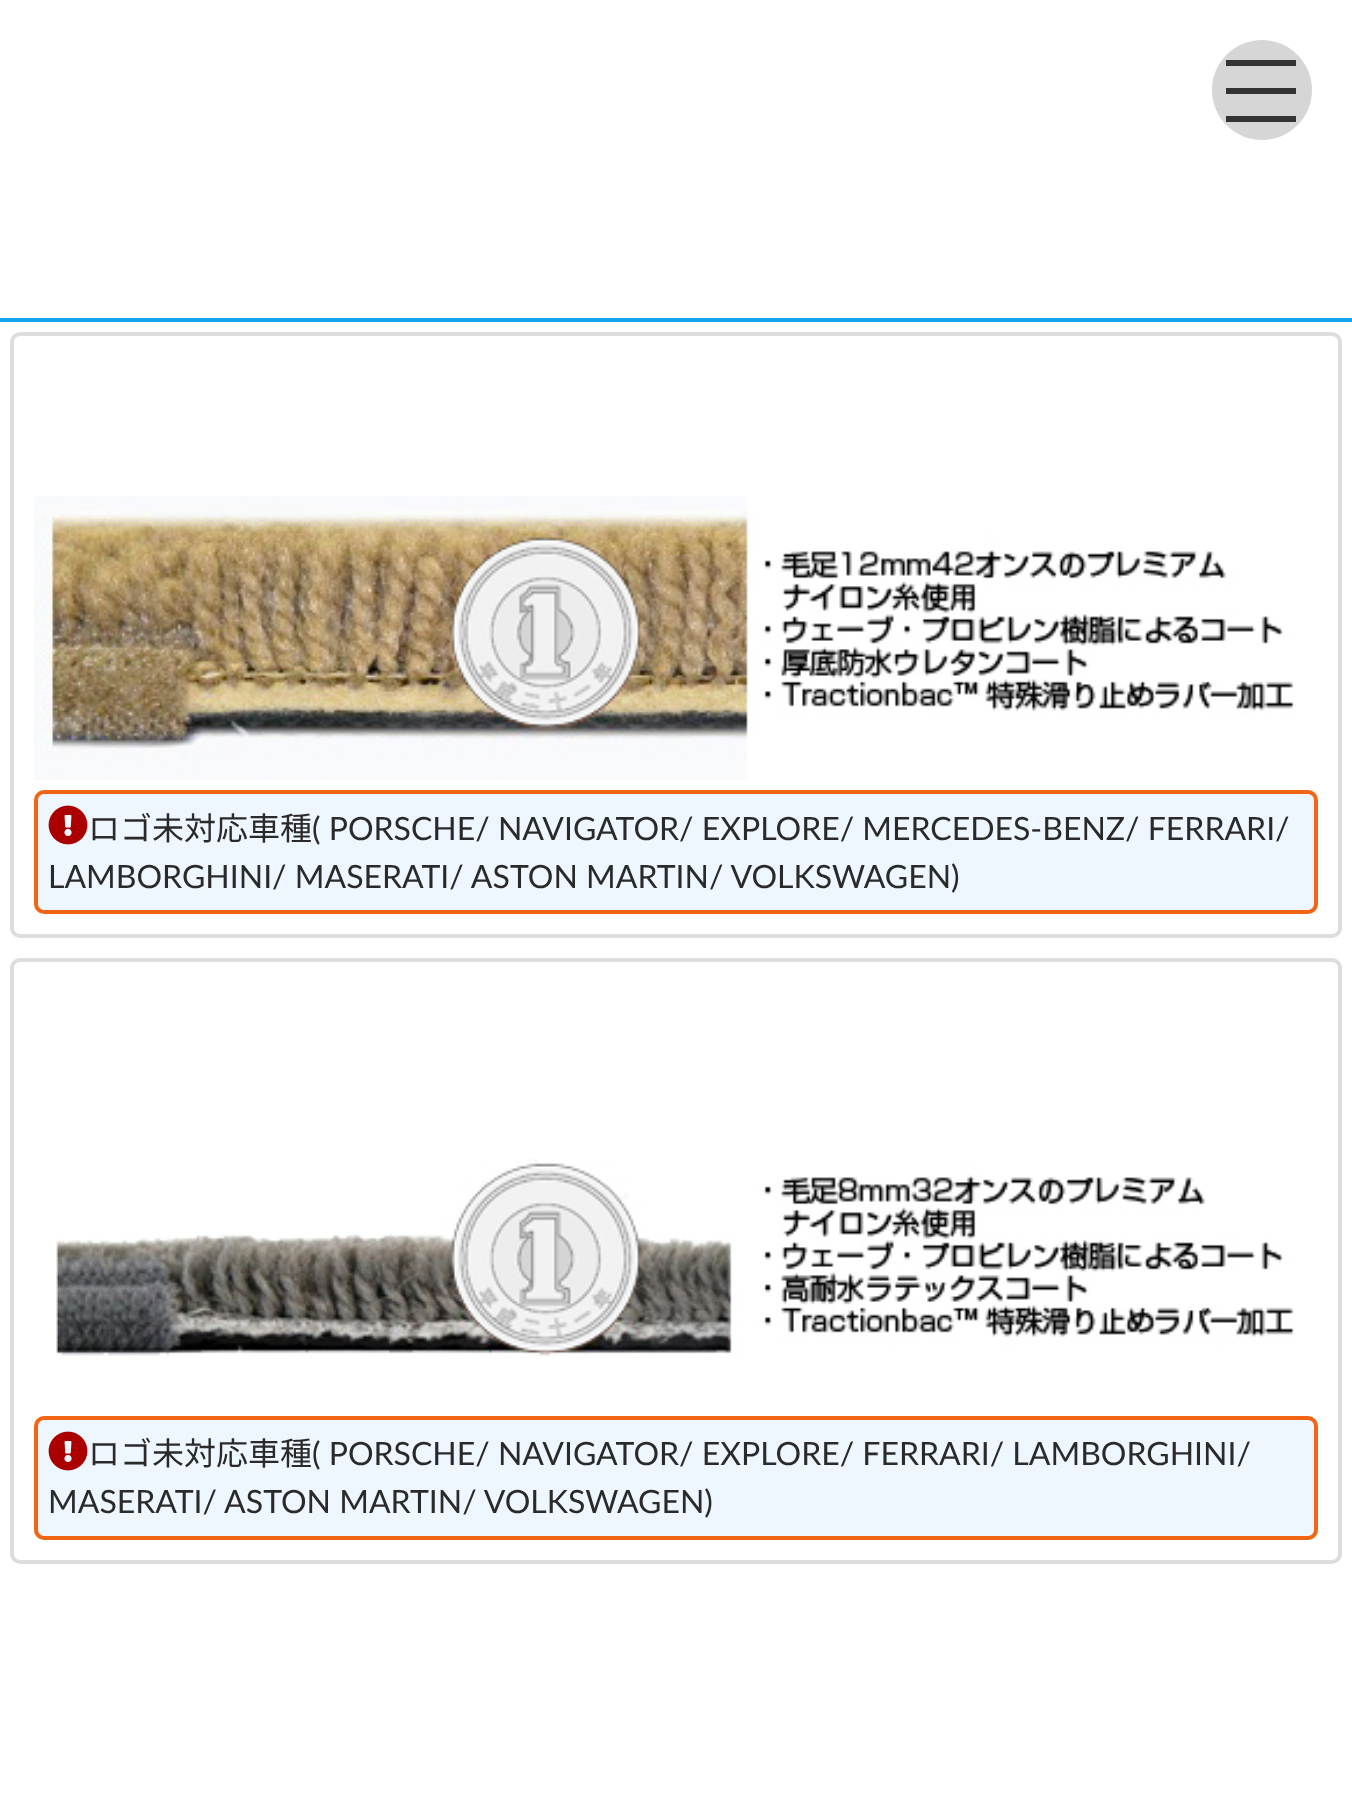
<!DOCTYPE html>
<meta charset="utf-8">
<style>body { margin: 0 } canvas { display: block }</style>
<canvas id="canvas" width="1352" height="1815"></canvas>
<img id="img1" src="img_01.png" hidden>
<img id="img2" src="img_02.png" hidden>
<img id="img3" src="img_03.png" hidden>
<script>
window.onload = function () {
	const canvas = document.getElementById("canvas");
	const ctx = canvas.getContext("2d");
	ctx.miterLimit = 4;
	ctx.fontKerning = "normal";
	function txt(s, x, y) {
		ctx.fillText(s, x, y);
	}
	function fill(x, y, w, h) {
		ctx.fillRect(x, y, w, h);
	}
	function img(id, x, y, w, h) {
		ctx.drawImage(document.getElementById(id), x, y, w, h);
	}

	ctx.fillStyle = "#FFFFFF";
	fill(0, 0, 1352, 1815);
	ctx.fillStyle = "#D6D6D6";
	ctx.beginPath();
	ctx.arc(1262, 90, 50, 0, Math.PI * 2);
	ctx.fill();
	ctx.fillStyle = "#333333";
	fill(1226, 60, 70, 6);
	fill(1226, 88, 70, 6);
	fill(1226, 116, 70, 6);
	ctx.fillStyle = "#14A5F1";
	fill(0, 318, 1352, 4);
	ctx.beginPath();
	ctx.roundRect(12, 334, 1328, 602, 8);
	ctx.strokeStyle = "#DDDDDD";
	ctx.lineWidth = 4;
	ctx.stroke();
	img("img1", 34, 496, 1260, 284);
	ctx.fillStyle = "#EEF6FF";
	ctx.beginPath();
	ctx.roundRect(36, 792, 1280, 120, 8);
	ctx.fill();
	ctx.strokeStyle = "#F16514";
	ctx.stroke();
	img("img2", 48, 805, 40, 40);
	ctx.beginPath();
	ctx.roundRect(12, 960, 1328, 602, 8);
	ctx.strokeStyle = "#DDDDDD";
	ctx.stroke();
	img("img3", 56, 1159, 1238, 200);
	ctx.beginPath();
	ctx.roundRect(36, 1418, 1280, 120, 8);
	ctx.fill();
	ctx.strokeStyle = "#F16514";
	ctx.stroke();
	img("img2", 48, 1431, 40, 40);
	ctx.font = "32px Noto Sans JP";
	ctx.fillStyle = "#2B2A2A";
	txt("ロゴ未対応車種", 88, 840);
	ctx.font = "32px Lato";
	txt("( PORSCHE/ NAVIGATOR/ EXPLORE/ MERCEDES-BENZ/ FERRARI/", 312, 840);
	txt("LAMBORGHINI/ MASERATI/ ASTON MARTIN/ VOLKSWAGEN)", 48, 888);
	ctx.font = "32px Noto Sans JP";
	txt("ロゴ未対応車種", 88, 1465);
	ctx.font = "32px Lato";
	txt("( PORSCHE/ NAVIGATOR/ EXPLORE/ FERRARI/ LAMBORGHINI/", 312, 1465);
	txt("MASERATI/ ASTON MARTIN/ VOLKSWAGEN)", 48, 1513);
};
</script>
